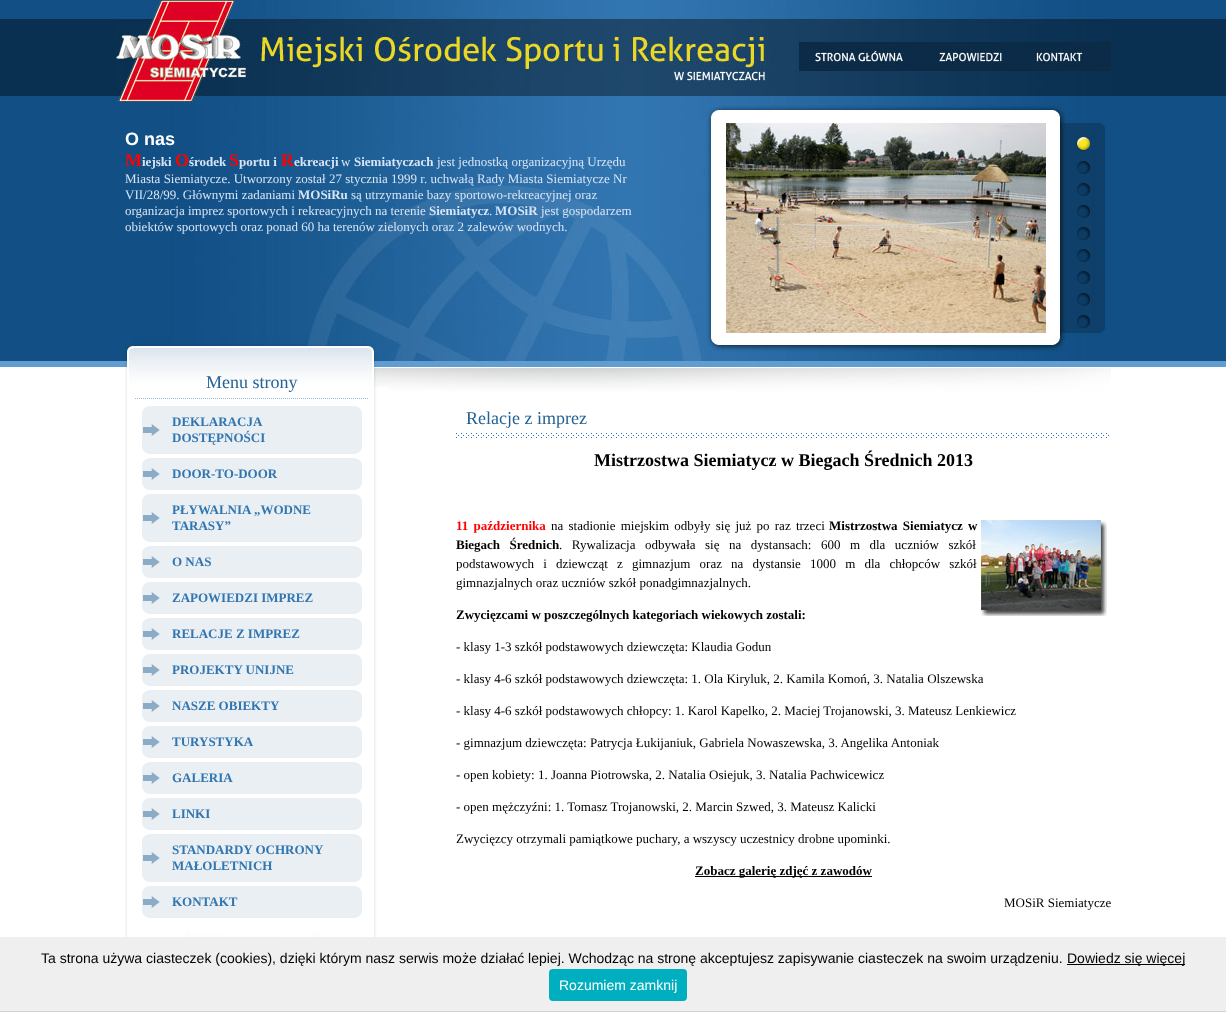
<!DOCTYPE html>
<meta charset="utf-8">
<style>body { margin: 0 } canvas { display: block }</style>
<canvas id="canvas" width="1226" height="1012"></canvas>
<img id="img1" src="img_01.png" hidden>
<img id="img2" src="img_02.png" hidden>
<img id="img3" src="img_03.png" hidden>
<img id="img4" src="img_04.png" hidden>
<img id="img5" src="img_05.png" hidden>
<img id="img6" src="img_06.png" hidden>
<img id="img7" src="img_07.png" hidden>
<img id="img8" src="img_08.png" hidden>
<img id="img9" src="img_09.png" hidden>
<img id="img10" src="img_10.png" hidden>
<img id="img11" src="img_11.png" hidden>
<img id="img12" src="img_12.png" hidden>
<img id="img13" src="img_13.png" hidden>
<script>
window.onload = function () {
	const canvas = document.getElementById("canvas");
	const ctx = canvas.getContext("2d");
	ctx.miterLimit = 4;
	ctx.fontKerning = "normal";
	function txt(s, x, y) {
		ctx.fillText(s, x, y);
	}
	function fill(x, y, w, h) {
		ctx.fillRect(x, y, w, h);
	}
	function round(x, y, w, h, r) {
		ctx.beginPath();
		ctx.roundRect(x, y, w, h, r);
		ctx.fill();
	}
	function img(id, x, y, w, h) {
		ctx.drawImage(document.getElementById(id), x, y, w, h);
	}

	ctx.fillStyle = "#FFFFFF";
	fill(0, 0, 1226, 1012);
	img("img1", 0, 0, 1226, 367);
	img("img2", 115, 0, 996, 96);
	img("img3", 115, 96, 991, 271);
	img("img4", 726, 123, 320, 210);
	img("img5", 1076, 137, 14, 14);
	img("img6", 1077, 161, 13, 13);
	img("img6", 1077, 183, 13, 13);
	img("img6", 1077, 205, 13, 13);
	img("img6", 1077, 227, 13, 13);
	img("img6", 1077, 249, 13, 13);
	img("img6", 1077, 271, 13, 13);
	img("img6", 1077, 293, 13, 13);
	img("img6", 1077, 315, 13, 13);
	img("img7", 389, 367, 722, 40);
	img("img8", 125, 367, 264, 570);
	img("img9", 129, 367, 260, 20);
	ctx.beginPath();
	ctx.moveTo(135, 398.5);
	ctx.lineTo(369, 398.5);
	ctx.strokeStyle = "#98BAD6";
	ctx.setLineDash([1, 1]);
	ctx.stroke();
	ctx.fillStyle = "#E9EFF3";
	round(142, 406, 220, 48, 8);
	img("img10", 143, 424, 17, 12);
	round(142, 458, 220, 32, 8);
	img("img10", 143, 468, 17, 12);
	round(142, 494, 220, 48, 8);
	img("img10", 143, 512, 17, 12);
	round(142, 546, 220, 32, 8);
	img("img10", 143, 556, 17, 12);
	round(142, 582, 220, 32, 8);
	img("img10", 143, 592, 17, 12);
	round(142, 618, 220, 32, 8);
	img("img10", 143, 628, 17, 12);
	round(142, 654, 220, 32, 8);
	img("img10", 143, 664, 17, 12);
	round(142, 690, 220, 32, 8);
	img("img10", 143, 700, 17, 12);
	round(142, 726, 220, 32, 8);
	img("img10", 143, 736, 17, 12);
	round(142, 762, 220, 32, 8);
	img("img10", 143, 772, 17, 12);
	round(142, 798, 220, 32, 8);
	img("img10", 143, 808, 17, 12);
	round(142, 834, 220, 48, 8);
	img("img10", 143, 852, 17, 12);
	round(142, 886, 220, 32, 8);
	img("img10", 143, 896, 17, 12);
	img("img11", 182, 933, 136, 4);
	img("img12", 456, 433, 653, 5);
	img("img13", 981, 520, 126, 96);
	ctx.fillStyle = "#000000";
	fill(695, 876, 177, 1);
	ctx.fillStyle = "#EFEFEF";
	fill(0, 937, 1226, 74);
	ctx.fillStyle = "#D3D0D0";
	fill(0, 1011, 1226, 1);
	ctx.fillStyle = "#000000";
	fill(1067, 964, 118, 1);
	ctx.fillStyle = "#00AFBF";
	round(549, 969, 138, 32, 4);
	ctx.font = "bold 18px Liberation Sans";
	ctx.fillStyle = "#FFFFFF";
	txt("O nas", 125, 145);
	ctx.font = "bold 18px Liberation Serif";
	ctx.fillStyle = "#FF0000";
	txt("M", 125, 166);
	ctx.font = "bold 13px Liberation Serif";
	ctx.fillStyle = "#D7E4F5";
	txt("iejski", 142, 166);
	ctx.font = "bold 18px Liberation Serif";
	ctx.fillStyle = "#FF0000";
	txt("O", 175, 166);
	ctx.font = "bold 13px Liberation Serif";
	ctx.fillStyle = "#D7E4F5";
	txt("środek", 189, 166);
	ctx.font = "bold 18px Liberation Serif";
	ctx.fillStyle = "#FF0000";
	txt("S", 229, 166);
	ctx.font = "bold 13px Liberation Serif";
	ctx.fillStyle = "#D7E4F5";
	txt("portu i", 239, 166);
	ctx.font = "bold 18px Liberation Serif";
	ctx.fillStyle = "#FF0000";
	txt("R", 281, 166);
	ctx.font = "bold 13px Liberation Serif";
	ctx.fillStyle = "#D7E4F5";
	txt("ekreacji", 294, 166);
	ctx.font = "13px Liberation Serif";
	txt("w", 341, 166);
	ctx.font = "bold 13px Liberation Serif";
	txt("Siemiatyczach", 354, 166);
	ctx.font = "13px Liberation Serif";
	txt("jest jednostką organizacyjną Urzędu", 437, 166);
	txt("Miasta Siemiatycze. Utworzony został 27 stycznia 1999 r. uchwałą Rady Miasta Siemiatycze Nr", 125, 183);
	txt("VII/28/99. Głównymi zadaniami", 125, 199);
	ctx.font = "bold 13px Liberation Serif";
	txt("MOSiRu", 298, 199);
	ctx.font = "13px Liberation Serif";
	txt("są utrzymanie bazy sportowo-rekreacyjnej oraz", 351, 199);
	txt("organizacja imprez sportowych i rekreacyjnych na terenie", 125, 215);
	ctx.font = "bold 13px Liberation Serif";
	txt("Siemiatycz", 429, 215);
	ctx.font = "13px Liberation Serif";
	txt(".", 489, 215);
	ctx.font = "bold 13px Liberation Serif";
	txt("MOSiR", 495, 215);
	ctx.font = "13px Liberation Serif";
	txt("jest gospodarzem", 541, 215);
	txt("obiektów sportowych oraz ponad 60 ha terenów zielonych oraz 2 zalewów wodnych.", 125, 231);
	ctx.font = "18px Liberation Serif";
	ctx.fillStyle = "#236194";
	txt("Menu strony", 206, 388);
	ctx.font = "bold 13px Liberation Serif";
	ctx.fillStyle = "#3276B0";
	txt("DEKLARACJA", 172, 426);
	txt("DOSTĘPNOŚCI", 172, 442);
	txt("DOOR-TO-DOOR", 172, 478);
	txt("PŁYWALNIA „WODNE", 172, 514);
	txt("TARASY”", 172, 530);
	txt("O NAS", 172, 566);
	txt("ZAPOWIEDZI IMPREZ", 172, 602);
	txt("RELACJE Z IMPREZ", 172, 638);
	txt("PROJEKTY UNIJNE", 172, 674);
	txt("NASZE OBIEKTY", 172, 710);
	txt("TURYSTYKA", 172, 746);
	txt("GALERIA", 172, 782);
	txt("LINKI", 172, 818);
	txt("STANDARDY OCHRONY", 172, 854);
	txt("MAŁOLETNICH", 172, 870);
	txt("KONTAKT", 172, 906);
	ctx.font = "18px Liberation Serif";
	ctx.fillStyle = "#236194";
	txt("Relacje z imprez", 466, 424);
	ctx.font = "bold 18px Liberation Serif";
	ctx.fillStyle = "#000000";
	txt("Mistrzostwa Siemiatycz w Biegach Średnich 2013", 594, 466);
	ctx.wordSpacing = "2px";
	ctx.font = "bold 13px Liberation Serif";
	ctx.fillStyle = "#FF0000";
	txt("11 października", 456, 530);
	ctx.font = "13px Liberation Serif";
	ctx.fillStyle = "#000000";
	txt("na stadionie miejskim odbyły się już po raz trzeci", 551, 530);
	ctx.font = "bold 13px Liberation Serif";
	txt("Mistrzostwa Siemiatycz w", 829, 530);
	ctx.wordSpacing = "6.25px";
	txt("Biegach Średnich", 456, 549);
	ctx.font = "13px Liberation Serif";
	txt(". Rywalizacja odbywała się na dystansach: 600 m dla uczniów szkół", 559, 549);
	ctx.wordSpacing = "5.9px";
	txt("podstawowych i dziewcząt z gimnazjum oraz na dystansie 1000 m dla chłopców szkół", 456, 568);
	ctx.wordSpacing = "0px";
	txt("gimnazjalnych oraz uczniów szkół ponadgimnazjalnych.", 456, 587);
	ctx.font = "bold 13px Liberation Serif";
	txt("Zwycięzcami w poszczególnych kategoriach wiekowych zostali:", 456, 619);
	ctx.font = "13px Liberation Serif";
	txt("- klasy 1-3 szkół podstawowych dziewczęta: Klaudia Godun", 456, 651);
	txt("- klasy 4-6 szkół podstawowych dziewczęta: 1. Ola Kiryluk, 2. Kamila Komoń, 3. Natalia Olszewska", 456, 683);
	txt("- klasy 4-6 szkół podstawowych chłopcy: 1. Karol Kapelko, 2. Maciej Trojanowski, 3. Mateusz Lenkiewicz", 456, 715);
	txt("- gimnazjum dziewczęta: Patrycja Łukijaniuk, Gabriela Nowaszewska, 3. Angelika Antoniak", 456, 747);
	txt("- open kobiety: 1. Joanna Piotrowska, 2. Natalia Osiejuk, 3. Natalia Pachwicewicz", 456, 779);
	txt("- open mężczyźni: 1. Tomasz Trojanowski, 2. Marcin Szwed, 3. Mateusz Kalicki", 456, 811);
	txt("Zwycięzcy otrzymali pamiątkowe puchary, a wszyscy uczestnicy drobne upominki.", 456, 843);
	ctx.font = "bold 13px Liberation Serif";
	txt("Zobacz galerię zdjęć z zawodów", 695, 875);
	ctx.font = "13px Liberation Serif";
	txt("MOSiR Siemiatycze", 1004, 907);
	ctx.font = "14px Liberation Sans";
	txt("Ta strona używa ciasteczek (cookies), dzięki którym nasz serwis może działać lepiej. Wchodząc na stronę akceptujesz zapisywanie ciasteczek na swoim urządzeniu.", 41, 963);
	txt("Dowiedz się więcej", 1067, 963);
	ctx.fillStyle = "#FFFFFF";
	txt("Rozumiem zamknij", 559, 990);
};
</script>
